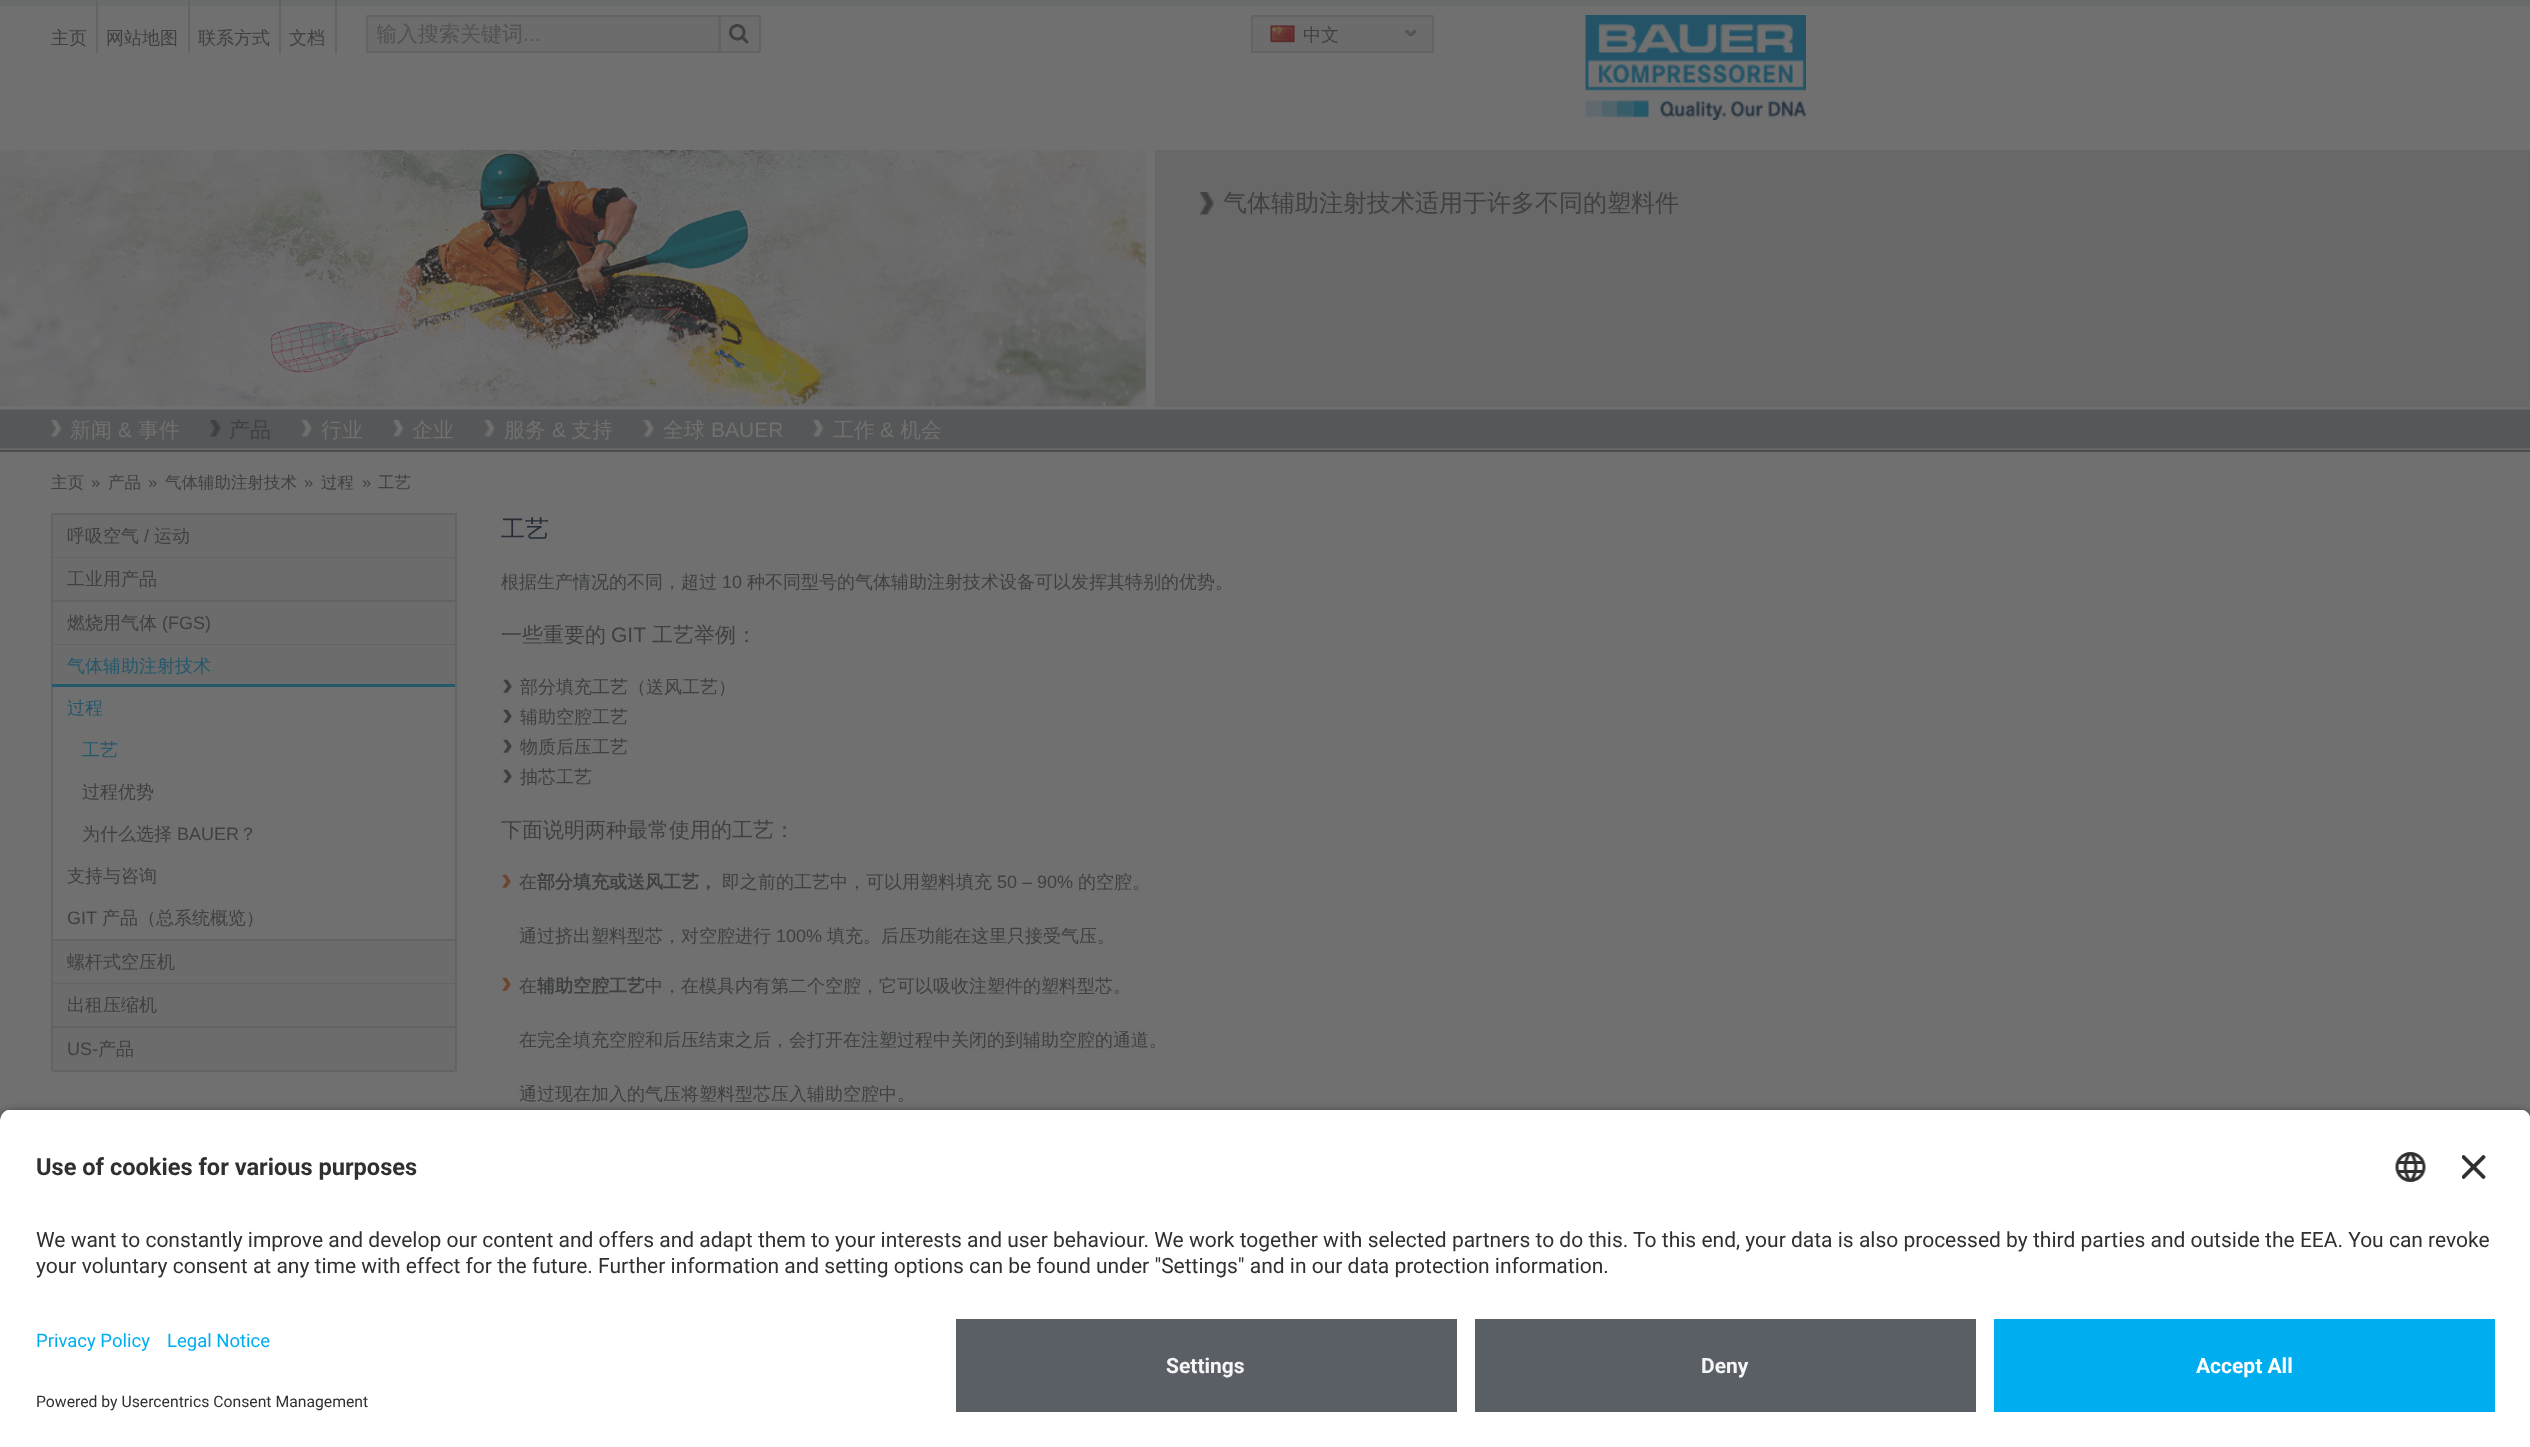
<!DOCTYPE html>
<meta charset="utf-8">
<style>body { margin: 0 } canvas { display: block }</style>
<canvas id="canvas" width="2530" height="1447"></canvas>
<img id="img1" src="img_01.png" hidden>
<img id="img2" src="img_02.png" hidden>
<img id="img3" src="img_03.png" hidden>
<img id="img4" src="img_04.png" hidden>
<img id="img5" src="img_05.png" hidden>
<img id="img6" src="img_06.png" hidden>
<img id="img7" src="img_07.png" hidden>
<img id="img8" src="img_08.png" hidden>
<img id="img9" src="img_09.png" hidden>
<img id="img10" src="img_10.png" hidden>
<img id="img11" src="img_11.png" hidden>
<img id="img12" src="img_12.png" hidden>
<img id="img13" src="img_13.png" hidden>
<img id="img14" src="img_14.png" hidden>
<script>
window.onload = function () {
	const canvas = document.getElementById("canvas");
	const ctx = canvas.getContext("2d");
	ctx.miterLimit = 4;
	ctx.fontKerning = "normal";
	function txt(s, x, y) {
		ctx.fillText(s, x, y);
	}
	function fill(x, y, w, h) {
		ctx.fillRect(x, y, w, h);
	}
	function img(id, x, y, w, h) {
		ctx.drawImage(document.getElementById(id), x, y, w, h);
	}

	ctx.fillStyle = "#707070";
	fill(0, 0, 2530, 1447);
	ctx.fillStyle = "#696A6A";
	fill(0, 0, 2530, 6);
	ctx.fillStyle = "#626363";
	fill(96, 0, 2, 53);
	fill(188, 0, 2, 53);
	fill(279, 0, 2, 53);
	fill(335, 0, 2, 53);
	ctx.fillStyle = "#6C6C6C";
	ctx.beginPath();
	ctx.roundRect(720, 16, 40, 36, [0, 0.5, 0.5, 0]);
	ctx.fill();
	ctx.strokeStyle = "#626363";
	ctx.lineWidth = 2;
	ctx.stroke();
	ctx.beginPath();
	ctx.roundRect(367, 16, 352, 36, 0.5);
	ctx.fill();
	ctx.stroke();
	img("img1", 729, 24, 20, 20);
	ctx.beginPath();
	ctx.roundRect(1252, 16, 181, 36, 0.5);
	ctx.fill();
	ctx.stroke();
	img("img2", 1405, 30, 11, 6);
	img("img3", 1270, 25, 25, 18);
	img("img4", 1585, 15, 221, 105);
	ctx.fillStyle = "#686868";
	fill(1155, 150, 1375, 257);
	img("img5", 0, 150, 1146, 257);
	img("img6", 1200, 192, 14, 23);
	ctx.fillStyle = "#565759";
	fill(0, 451, 2530, 1);
	img("img7", 0, 409, 2530, 43);
	img("img8", 51, 420, 11, 17);
	img("img9", 210, 420, 11, 17);
	img("img10", 301, 420, 11, 17);
	img("img11", 393, 420, 11, 17);
	img("img10", 484, 420, 11, 17);
	img("img12", 643, 420, 11, 17);
	img("img8", 813, 420, 11, 17);
	ctx.fillStyle = "#626363";
	fill(51, 513, 405, 2);
	fill(455, 513, 2, 558);
	fill(51, 513, 2, 558);
	ctx.fillStyle = "#6C6C6C";
	fill(53, 515, 402, 42);
	ctx.fillStyle = "#626363";
	fill(53, 557, 402, 1);
	ctx.fillStyle = "#6C6C6C";
	fill(53, 558, 402, 42);
	ctx.fillStyle = "#626363";
	fill(53, 600, 402, 2);
	ctx.fillStyle = "#6C6C6C";
	fill(53, 602, 402, 42);
	ctx.fillStyle = "#626363";
	fill(53, 644, 402, 1);
	ctx.fillStyle = "#6C6C6C";
	fill(53, 645, 402, 39);
	ctx.fillStyle = "#626363";
	fill(53, 939, 402, 2);
	ctx.fillStyle = "#24586B";
	fill(52, 684, 403, 3);
	ctx.fillStyle = "#6C6C6C";
	fill(53, 941, 402, 42);
	ctx.fillStyle = "#626363";
	fill(53, 983, 402, 1);
	ctx.fillStyle = "#6C6C6C";
	fill(53, 984, 402, 42);
	ctx.fillStyle = "#626363";
	fill(53, 1026, 402, 2);
	ctx.fillStyle = "#6C6C6C";
	fill(53, 1028, 402, 42);
	ctx.fillStyle = "#626363";
	fill(53, 1070, 402, 2);
	ctx.fillStyle = "rgba(0, 0, 0, 0.8)";
	ctx.filter = "blur(5px)";
	ctx.beginPath();
	ctx.roundRect(0, 1113, 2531, 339, 12);
	ctx.fill();
	ctx.filter = "none";
	ctx.save();
	ctx.beginPath();
	ctx.moveTo(12, 1109);
	ctx.lineTo(2519, 1109);
	ctx.bezierCurveTo(2525.5, 1109, 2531, 1114.5, 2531, 1121);
	ctx.lineTo(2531, 1307);
	ctx.lineTo(0, 1307);
	ctx.lineTo(0, 1121);
	ctx.bezierCurveTo(0, 1114.5, 5.5, 1109, 12, 1109);
	ctx.closePath();
	ctx.clip();
	ctx.fillStyle = "#FFFFFF";
	fill(0, 1110, 2530, 197);
	ctx.restore();
	img("img13", 2395, 1152, 31, 30);
	img("img14", 2462, 1155, 24, 24);
	ctx.fillStyle = "#FFFFFF";
	fill(0, 1307, 2530, 140);
	ctx.fillStyle = "#5A5E65";
	fill(956, 1319, 501, 93);
	fill(1475, 1319, 501, 93);
	ctx.fillStyle = "#00AEEF";
	fill(1994, 1319, 501, 93);
	ctx.font = "500 18px WenQuanYi Zen Hei";
	ctx.fillStyle = "#3F4042";
	txt("主页", 51, 44);
	txt("网站地图", 106, 44);
	txt("联系方式", 198, 44);
	txt("文档", 289, 44);
	ctx.save();
	ctx.beginPath();
	ctx.rect(377, 23, 333, 27);
	ctx.clip();
	ctx.font = "500 21px WenQuanYi Zen Hei";
	ctx.fillStyle = "#525252";
	txt("输入搜索关键词", 376, 41);
	ctx.restore();
	ctx.font = "21px Liberation Sans";
	ctx.fillStyle = "#525252";
	txt("...", 523, 41);
	ctx.font = "500 18px WenQuanYi Zen Hei";
	ctx.fillStyle = "#3F4042";
	txt("中文", 1303, 41);
	ctx.font = "500 24px WenQuanYi Zen Hei";
	txt("气体辅助注射技术适用于许多不同的塑料件", 1223, 211);
	ctx.font = "500 21px WenQuanYi Zen Hei";
	ctx.fillStyle = "#707070";
	txt("新闻", 70, 437);
	ctx.font = "21px Liberation Sans";
	txt("&", 118, 437);
	ctx.font = "500 21px WenQuanYi Zen Hei";
	txt("事件", 138, 437);
	ctx.fillStyle = "#3F4042";
	txt("产品", 229, 437);
	ctx.fillStyle = "#707070";
	txt("行业", 321, 437);
	txt("企业", 412, 437);
	txt("服务", 504, 437);
	ctx.font = "21px Liberation Sans";
	txt("&", 552, 437);
	ctx.font = "500 21px WenQuanYi Zen Hei";
	txt("支持", 571, 437);
	txt("全球", 663, 437);
	ctx.font = "21px Liberation Sans";
	txt("BAUER", 711, 437);
	ctx.font = "500 21px WenQuanYi Zen Hei";
	txt("工作", 833, 437);
	ctx.font = "21px Liberation Sans";
	txt("&", 880, 437);
	ctx.font = "500 21px WenQuanYi Zen Hei";
	txt("机会", 900, 437);
	ctx.font = "500 16.5px WenQuanYi Zen Hei";
	ctx.fillStyle = "#3F4042";
	txt("主页", 51, 488);
	ctx.font = "16.5px Liberation Sans";
	txt("»", 91, 488);
	ctx.font = "500 16.5px WenQuanYi Zen Hei";
	txt("产品", 108, 488);
	ctx.font = "16.5px Liberation Sans";
	txt("»", 148, 488);
	ctx.font = "500 16.5px WenQuanYi Zen Hei";
	txt("气体辅助注射技术", 165, 488);
	ctx.font = "16.5px Liberation Sans";
	txt("»", 304, 488);
	ctx.font = "500 16.5px WenQuanYi Zen Hei";
	txt("过程", 321, 488);
	ctx.font = "16.5px Liberation Sans";
	txt("»", 362, 488);
	ctx.font = "500 16.5px WenQuanYi Zen Hei";
	txt("工艺", 378, 488);
	ctx.font = "500 18px WenQuanYi Zen Hei";
	txt("呼吸空气", 67, 542);
	ctx.font = "18px Liberation Sans";
	txt("/", 144, 542);
	ctx.font = "500 18px WenQuanYi Zen Hei";
	txt("运动", 154, 542);
	txt("工业用产品", 67, 585);
	txt("燃烧用气体", 67, 629);
	ctx.font = "18px Liberation Sans";
	txt("(FGS)", 162, 629);
	ctx.font = "500 18px WenQuanYi Zen Hei";
	ctx.fillStyle = "#24586B";
	txt("气体辅助注射技术", 67, 672);
	txt("过程", 67, 714);
	txt("工艺", 82, 756);
	ctx.fillStyle = "#3F4042";
	txt("过程优势", 82, 798);
	txt("为什么选择", 82, 840);
	ctx.font = "18px Liberation Sans";
	txt("BAUER", 177, 840);
	ctx.font = "500 18px WenQuanYi Zen Hei";
	txt("？", 239, 840);
	txt("支持与咨询", 67, 882);
	ctx.font = "18px Liberation Sans";
	txt("GIT", 67, 924);
	ctx.font = "500 18px WenQuanYi Zen Hei";
	txt("产品（总系统概览）", 102, 924);
	txt("螺杆式空压机", 67, 968);
	txt("出租压缩机", 67, 1011);
	ctx.font = "18px Liberation Sans";
	txt("US-", 67, 1055);
	ctx.font = "500 18px WenQuanYi Zen Hei";
	txt("产品", 98, 1055);
	ctx.font = "500 24px WenQuanYi Zen Hei";
	ctx.fillStyle = "#262D37";
	txt("工艺", 501, 537);
	ctx.font = "500 18px WenQuanYi Zen Hei";
	ctx.fillStyle = "#3F4042";
	txt("根据生产情况的不同，超过", 501, 588);
	ctx.font = "18px Liberation Sans";
	txt("10", 722, 588);
	ctx.font = "500 18px WenQuanYi Zen Hei";
	txt("种不同型号的气体辅助注射技术设备可以发挥其特别的优势。", 747, 588);
	ctx.font = "500 21px WenQuanYi Zen Hei";
	txt("一些重要的", 501, 642);
	ctx.font = "21px Liberation Sans";
	txt("GIT", 611, 642);
	ctx.font = "500 21px WenQuanYi Zen Hei";
	txt("工艺举例：", 652, 642);
	ctx.font = "bold 33px Liberation Sans";
	txt("›", 502, 695);
	ctx.font = "500 18px WenQuanYi Zen Hei";
	txt("部分填充工艺（送风工艺）", 520, 693);
	ctx.font = "bold 33px Liberation Sans";
	txt("›", 502, 725);
	ctx.font = "500 18px WenQuanYi Zen Hei";
	txt("辅助空腔工艺", 520, 723);
	ctx.font = "bold 33px Liberation Sans";
	txt("›", 502, 755);
	ctx.font = "500 18px WenQuanYi Zen Hei";
	txt("物质后压工艺", 520, 753);
	ctx.font = "bold 33px Liberation Sans";
	txt("›", 502, 785);
	ctx.font = "500 18px WenQuanYi Zen Hei";
	txt("抽芯工艺", 520, 783);
	ctx.font = "500 21px WenQuanYi Zen Hei";
	txt("下面说明两种最常使用的工艺：", 501, 837);
	ctx.font = "bold 33px Liberation Sans";
	ctx.fillStyle = "#6D452E";
	txt("›", 501, 890);
	ctx.font = "500 18px WenQuanYi Zen Hei";
	ctx.fillStyle = "#3F4042";
	txt("在", 519, 888);
	ctx.font = "bold 18px WenQuanYi Zen Hei";
	txt("部分填充或送风工艺，", 537, 888);
	ctx.font = "500 18px WenQuanYi Zen Hei";
	txt("即之前的工艺中，可以用塑料填充", 722, 888);
	ctx.font = "18px Liberation Sans";
	txt("50 – 90%", 997, 888);
	ctx.font = "500 18px WenQuanYi Zen Hei";
	txt("的空腔。", 1078, 888);
	txt("通过挤出塑料型芯，对空腔进行", 519, 942);
	ctx.font = "18px Liberation Sans";
	txt("100%", 776, 942);
	ctx.font = "500 18px WenQuanYi Zen Hei";
	txt("填充。后压功能在这里只接受气压。", 827, 942);
	ctx.font = "bold 33px Liberation Sans";
	ctx.fillStyle = "#6D452E";
	txt("›", 501, 993);
	ctx.font = "500 18px WenQuanYi Zen Hei";
	ctx.fillStyle = "#3F4042";
	txt("在", 519, 992);
	ctx.font = "bold 18px WenQuanYi Zen Hei";
	txt("辅助空腔工艺", 537, 992);
	ctx.font = "500 18px WenQuanYi Zen Hei";
	txt("中，在模具内有第二个空腔，它可以吸收注塑件的塑料型芯。", 645, 992);
	txt("在完全填充空腔和后压结束之后，会打开在注塑过程中关闭的到辅助空腔的通道。", 519, 1046);
	txt("通过现在加入的气压将塑料型芯压入辅助空腔中。", 519, 1100);
	ctx.font = "bold 23.6px Roboto";
	ctx.fillStyle = "#303030";
	txt("Use of cookies for various purposes", 36, 1175);
	ctx.font = "21px Roboto";
	txt("We want to constantly improve and develop our content and offers and adapt them to your interests and user behaviour. We work together with selected partners to do this. To this end, your data is also processed by third parties and outside the EEA. You can revoke", 36, 1247);
	txt("your voluntary consent at any time with effect for the future. Further information and setting options can be found under \"Settings\" and in our data protection information.", 36, 1273);
	ctx.font = "18.5px Roboto";
	ctx.fillStyle = "#00AEEF";
	txt("Privacy Policy", 36, 1347);
	txt("Legal Notice", 167, 1347);
	ctx.font = "15.75px Roboto";
	ctx.fillStyle = "#303030";
	txt("Powered by Usercentrics Consent Management", 36, 1407);
	ctx.font = "bold 21px Roboto";
	ctx.fillStyle = "#F5F5F5";
	txt("Settings", 1166, 1373);
	txt("Deny", 1701, 1373);
	ctx.fillStyle = "#FFFFFF";
	txt("Accept All", 2196, 1373);
};
</script>
